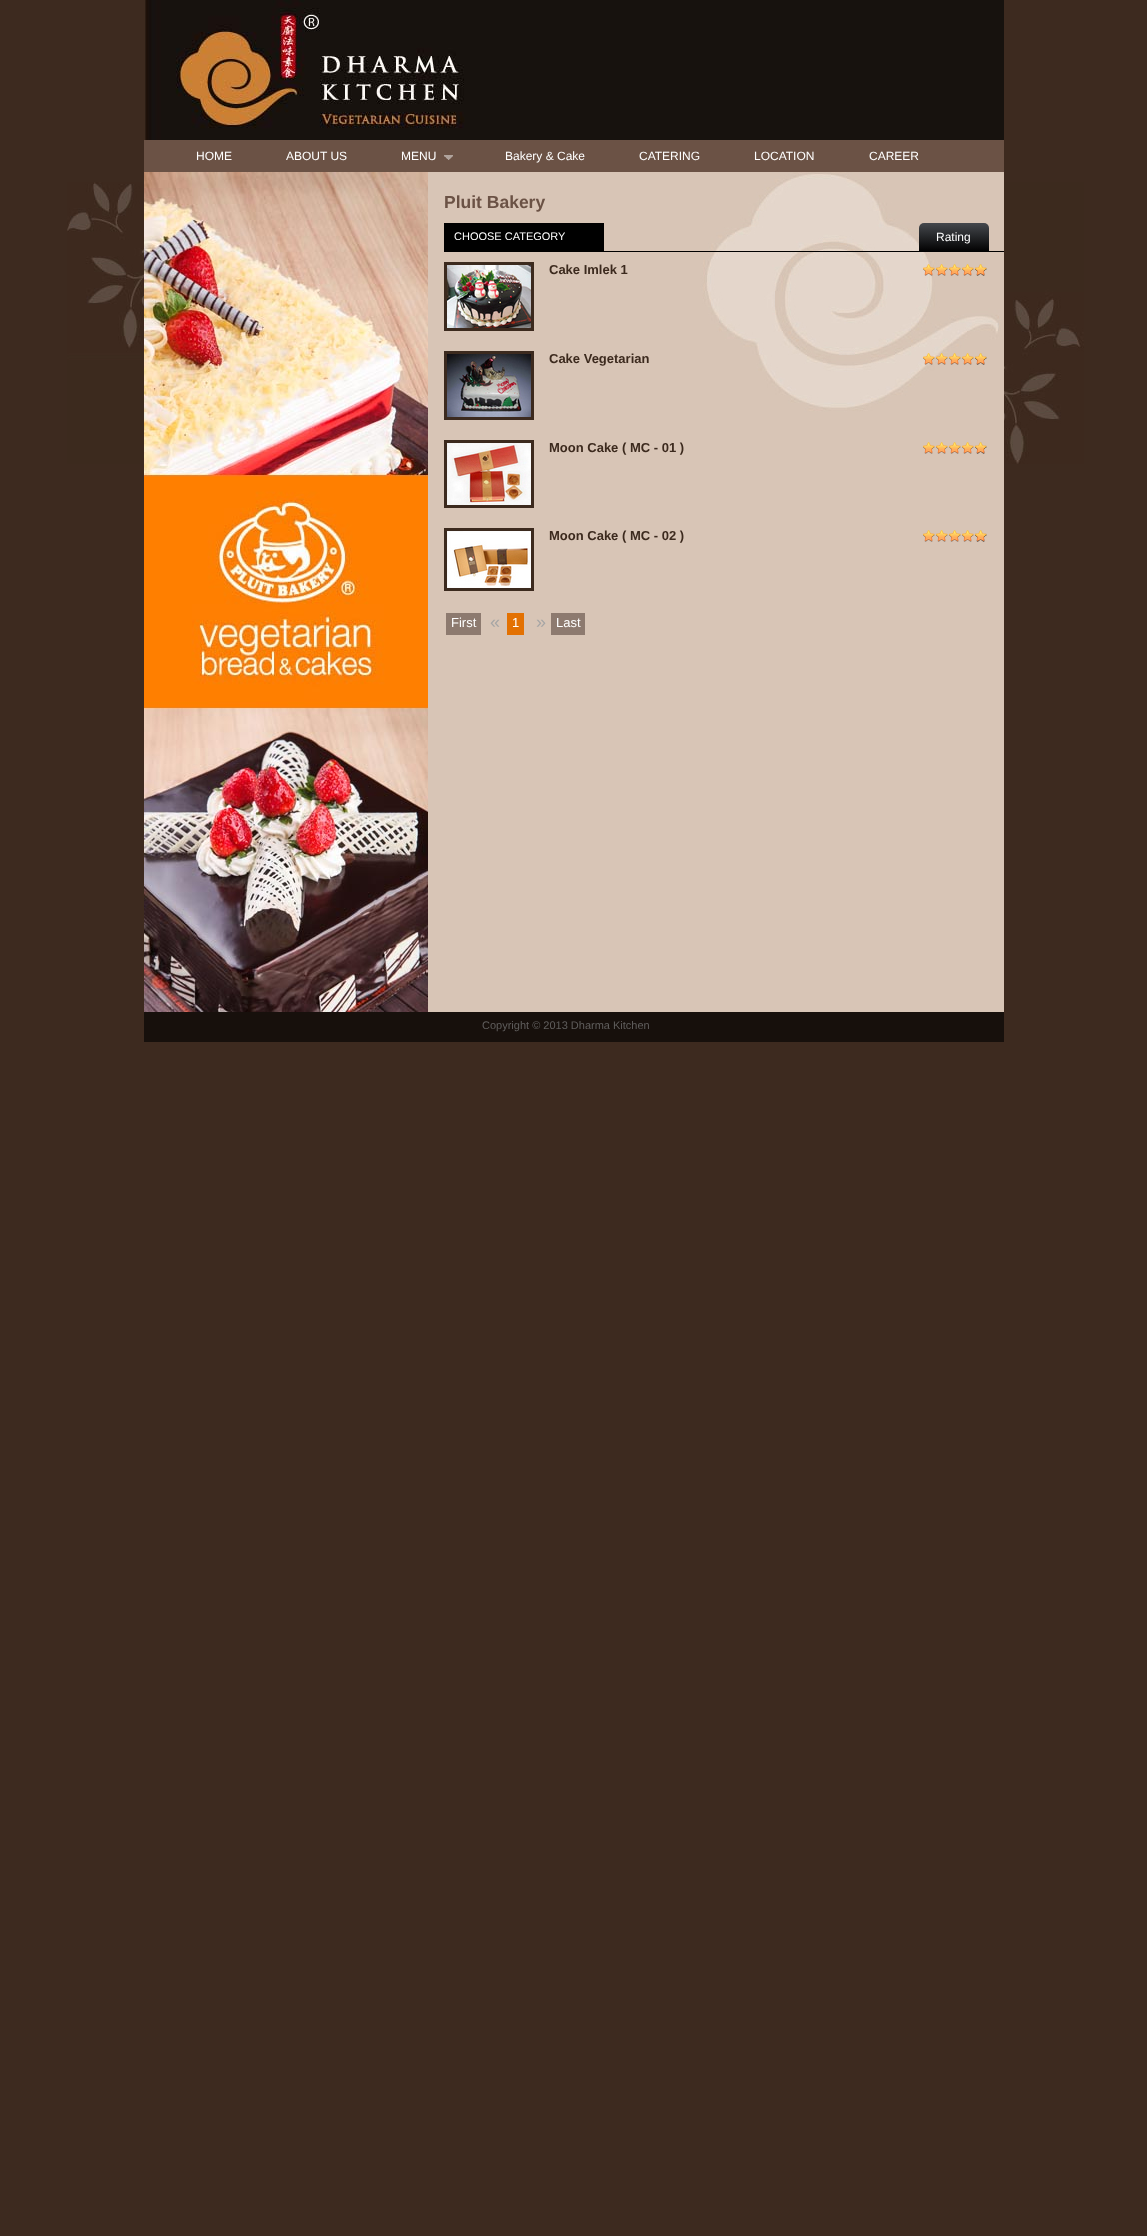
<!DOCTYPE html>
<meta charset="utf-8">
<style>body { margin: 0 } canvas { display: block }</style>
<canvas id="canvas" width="1147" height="2236"></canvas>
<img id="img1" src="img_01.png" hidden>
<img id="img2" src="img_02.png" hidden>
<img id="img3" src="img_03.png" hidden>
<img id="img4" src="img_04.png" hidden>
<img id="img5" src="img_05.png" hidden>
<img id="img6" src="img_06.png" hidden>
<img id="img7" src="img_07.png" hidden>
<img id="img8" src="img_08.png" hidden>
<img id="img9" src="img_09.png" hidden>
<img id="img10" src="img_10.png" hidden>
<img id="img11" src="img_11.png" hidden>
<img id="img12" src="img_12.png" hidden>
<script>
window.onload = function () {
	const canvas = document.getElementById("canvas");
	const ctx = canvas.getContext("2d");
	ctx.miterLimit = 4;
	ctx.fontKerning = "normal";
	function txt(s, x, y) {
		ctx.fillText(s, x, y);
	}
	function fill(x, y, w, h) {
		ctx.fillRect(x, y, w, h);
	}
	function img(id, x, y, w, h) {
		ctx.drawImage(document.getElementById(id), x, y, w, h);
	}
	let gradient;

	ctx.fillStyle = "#3D2A1F";
	fill(0, 0, 1147, 2236);
	img("img1", 67, 182, 1017, 282);
	img("img2", 145, 0, 859, 140);
	ctx.fillStyle = "#6B5245";
	fill(144, 140, 860, 32);
	img("img3", 444, 155, 9, 5);
	img("img4", 144, 172, 284, 840);
	img("img5", 428, 172, 576, 840);
	ctx.fillStyle = "#000000";
	fill(444, 251, 560, 1);
	fill(444, 223, 160, 28);
	gradient = ctx.createLinearGradient(954, 223, 954, 252);
	gradient.addColorStop(0, "#45484D");
	gradient.addColorStop(1, "#000000");
	ctx.fillStyle = gradient;
	ctx.beginPath();
	ctx.roundRect(919, 223, 70, 29, [5, 5, 0, 0]);
	ctx.fill();
	ctx.strokeStyle = "#3C2A1E";
	ctx.lineWidth = 3;
	ctx.strokeRect(445.5, 263.5, 87, 66);
	img("img6", 447, 265, 84, 63);
	img("img7", 923, 264, 64, 12);
	ctx.strokeRect(445.5, 352.5, 87, 66);
	img("img8", 447, 354, 84, 63);
	img("img9", 923, 353, 64, 12);
	ctx.strokeRect(445.5, 441.5, 87, 65);
	img("img10", 447, 443, 84, 62);
	img("img11", 923, 442, 64, 12);
	ctx.strokeRect(445.5, 529.5, 87, 60);
	img("img12", 447, 531, 84, 57);
	img("img11", 923, 530, 64, 12);
	ctx.fillStyle = "#8D7A6F";
	fill(446, 613, 35, 22);
	ctx.fillStyle = "#E37102";
	fill(507, 613, 17, 22);
	ctx.fillStyle = "#8D7A6F";
	fill(551, 613, 34, 22);
	ctx.fillStyle = "#17100C";
	fill(144, 1012, 860, 30);
	ctx.font = "12px Liberation Sans";
	ctx.fillStyle = "#FFFFFF";
	txt("HOME", 196, 160);
	txt("ABOUT US", 286, 160);
	txt("MENU", 401, 160);
	txt("Bakery & Cake", 505, 160);
	txt("CATERING", 639, 160);
	txt("LOCATION", 754, 160);
	txt("CAREER", 869, 160);
	ctx.font = "bold 17.5px Liberation Sans";
	ctx.fillStyle = "#6B5245";
	txt("Pluit Bakery", 444, 208);
	ctx.font = "11px Liberation Sans";
	ctx.fillStyle = "#FFFFFF";
	txt("CHOOSE CATEGORY", 454, 240);
	ctx.font = "12px Liberation Sans";
	txt("Rating", 936, 241);
	ctx.font = "bold 13px Liberation Sans";
	ctx.fillStyle = "#3C2A1E";
	txt("Cake Imlek 1", 549, 274);
	txt("Cake Vegetarian", 549, 363);
	txt("Moon Cake ( MC - 01 )", 549, 452);
	txt("Moon Cake ( MC - 02 )", 549, 540);
	ctx.font = "13px Liberation Sans";
	ctx.fillStyle = "#FFFFFF";
	txt("First", 451, 627);
	ctx.font = "18px Liberation Sans";
	ctx.fillStyle = "#A5A5A5";
	txt("«", 490, 628);
	ctx.font = "13px Liberation Sans";
	ctx.fillStyle = "#FFFFFF";
	txt("1", 512, 627);
	ctx.font = "18px Liberation Sans";
	ctx.fillStyle = "#A5A5A5";
	txt("»", 536, 628);
	ctx.font = "13px Liberation Sans";
	ctx.fillStyle = "#FFFFFF";
	txt("Last", 556, 627);
	ctx.font = "11px Liberation Sans";
	ctx.fillStyle = "#605E5D";
	txt("Copyright © 2013 Dharma Kitchen", 482, 1029);
};
</script>
